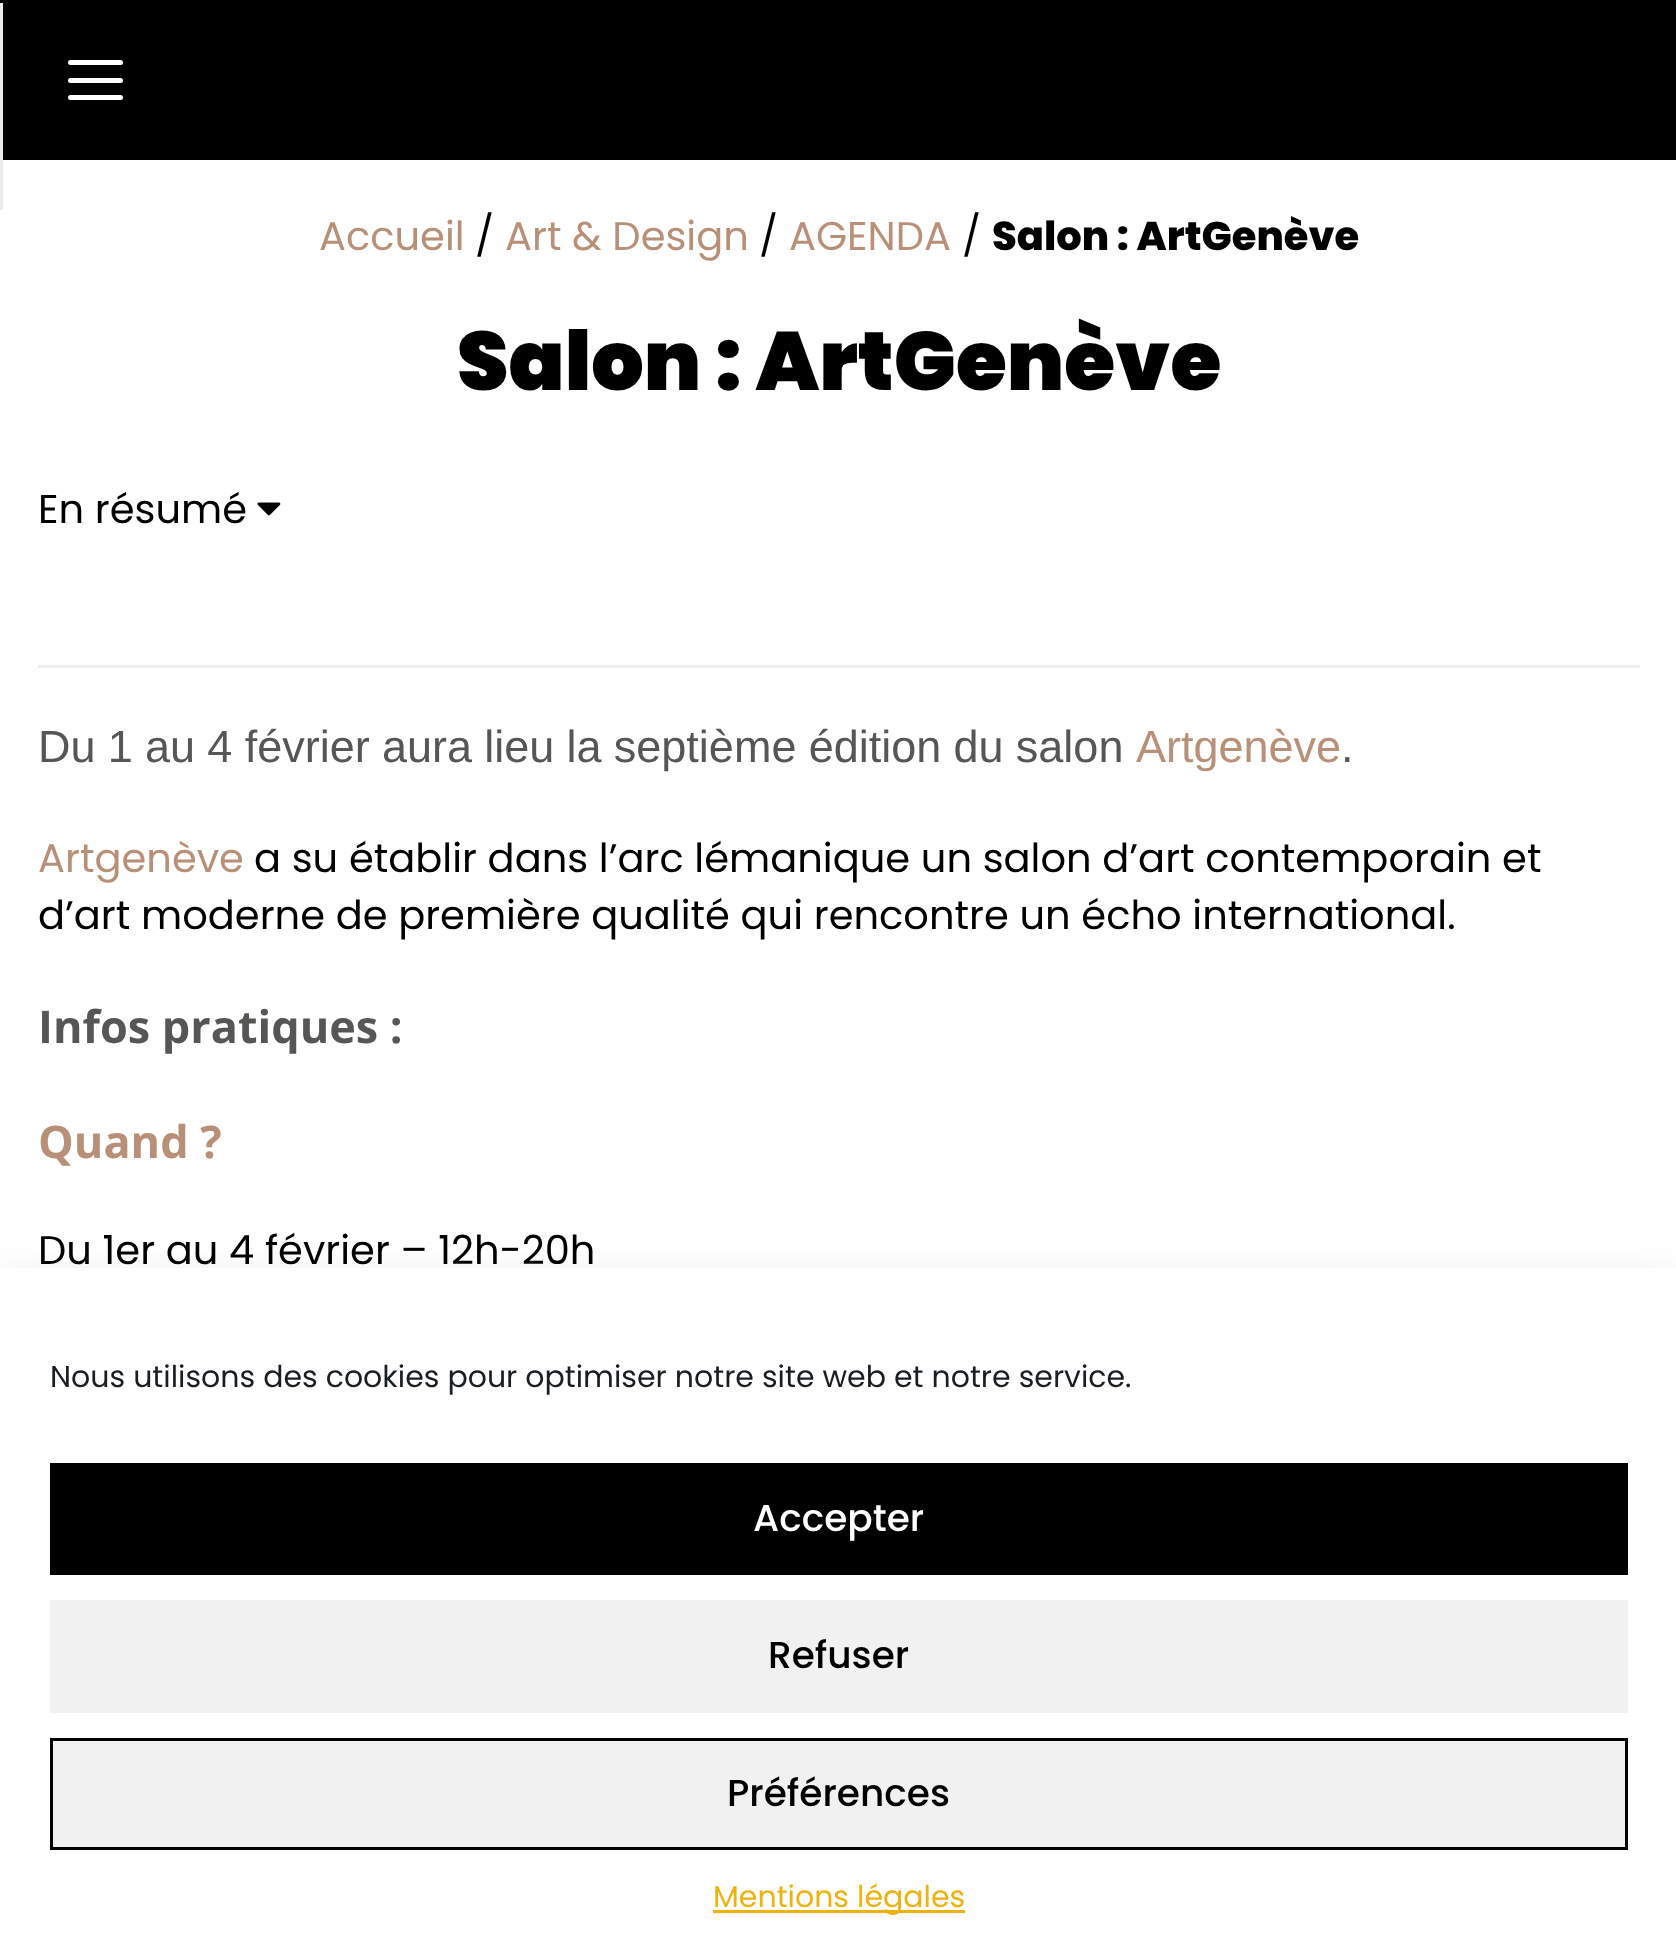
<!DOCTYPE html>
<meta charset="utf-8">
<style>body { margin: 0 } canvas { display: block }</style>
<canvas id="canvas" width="1676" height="1954"></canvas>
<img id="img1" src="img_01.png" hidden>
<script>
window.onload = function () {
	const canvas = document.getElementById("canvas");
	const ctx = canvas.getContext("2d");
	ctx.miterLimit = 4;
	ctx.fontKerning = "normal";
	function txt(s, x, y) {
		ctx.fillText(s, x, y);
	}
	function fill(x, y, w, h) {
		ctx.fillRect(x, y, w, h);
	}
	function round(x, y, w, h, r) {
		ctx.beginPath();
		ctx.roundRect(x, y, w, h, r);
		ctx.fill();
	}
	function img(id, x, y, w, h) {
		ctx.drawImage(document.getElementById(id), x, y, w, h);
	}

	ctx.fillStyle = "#FFFFFF";
	fill(0, 0, 1676, 1954);
	ctx.fillStyle = "#000000";
	fill(0, 0, 1676, 160);
	ctx.fillStyle = "#EBEBEB";
	fill(0, 3, 3, 207);
	ctx.fillStyle = "#FFFFFF";
	round(68, 60, 55, 5, 2.5);
	round(68, 78, 55, 5, 2.5);
	round(68, 95, 55, 5, 2.5);
	img("img1", 257, 502, 24, 14);
	ctx.fillStyle = "#EEEEEE";
	fill(38, 665, 1602, 3);
	ctx.fillStyle = "rgba(0, 0, 0, 0.19)";
	ctx.filter = "blur(25px)";
	ctx.beginPath();
	ctx.rect(0, 1293, 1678, 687);
	ctx.fill();
	ctx.filter = "none";
	ctx.fillStyle = "#FFFFFF";
	fill(0, 1268, 1676, 686);
	ctx.fillStyle = "#000000";
	fill(50, 1463, 1578, 112);
	ctx.fillStyle = "#F1F1F1";
	fill(50, 1600, 1578, 113);
	ctx.beginPath();
	ctx.rect(51.5, 1739.5, 1575, 109);
	ctx.fill();
	ctx.strokeStyle = "#000000";
	ctx.lineWidth = 3;
	ctx.stroke();
	ctx.fillStyle = "#EEB10D";
	fill(713, 1910, 252, 3);
	ctx.font = "40px Poppins";
	ctx.fillStyle = "#B89078";
	txt("Accueil", 319, 250);
	ctx.fillStyle = "#000000";
	txt("/", 475, 250);
	ctx.fillStyle = "#B89078";
	txt("Art & Design", 505, 250);
	ctx.fillStyle = "#000000";
	txt("/", 759, 250);
	ctx.fillStyle = "#B89078";
	txt("AGENDA", 789, 250);
	ctx.fillStyle = "#000000";
	txt("/", 962, 250);
	ctx.font = "800 40px Poppins";
	txt("Salon : ArtGenève", 992, 250);
	ctx.font = "900 82.5px Poppins";
	txt("Salon : ArtGenève", 457, 390);
	ctx.font = "40px Poppins";
	txt("En résumé", 38, 523);
	ctx.wordSpacing = "-0.25px";
	ctx.font = "45px Liberation Sans";
	ctx.fillStyle = "#565655";
	txt("Du 1 au 4 février aura lieu la septième édition du salon", 38, 762);
	ctx.wordSpacing = "0px";
	ctx.fillStyle = "#B89078";
	txt("Artgenève", 1136, 762);
	ctx.fillStyle = "#565655";
	txt(".", 1341, 762);
	ctx.font = "40px Poppins";
	ctx.fillStyle = "#B89078";
	txt("Artgenève", 38, 872);
	ctx.fillStyle = "#000000";
	txt("a su établir dans l’arc lémanique un salon d’art contemporain et", 254, 872);
	txt("d’art moderne de première qualité qui rencontre un écho international.", 38, 929);
	ctx.font = "bold 45px Open Sans";
	ctx.fillStyle = "#565655";
	txt("Infos pratiques :", 38, 1043);
	ctx.fillStyle = "#B89078";
	txt("Quand ?", 38, 1158);
	ctx.font = "40px Poppins";
	ctx.fillStyle = "#000000";
	txt("Du 1er au 4 février – 12h-20h", 38, 1264);
	ctx.font = "30px Poppins";
	ctx.fillStyle = "#191E23";
	txt("Nous utilisons des cookies pour optimiser notre site web et notre service.", 50, 1387);
	ctx.font = "500 37.5px Poppins";
	ctx.fillStyle = "#FFFFFF";
	txt("Accepter", 753, 1531);
	ctx.fillStyle = "#000000";
	txt("Refuser", 768, 1668);
	txt("Préférences", 727, 1806);
	ctx.font = "30px Poppins";
	ctx.fillStyle = "#EEB10D";
	txt("Mentions légales", 713, 1907);
};
</script>
